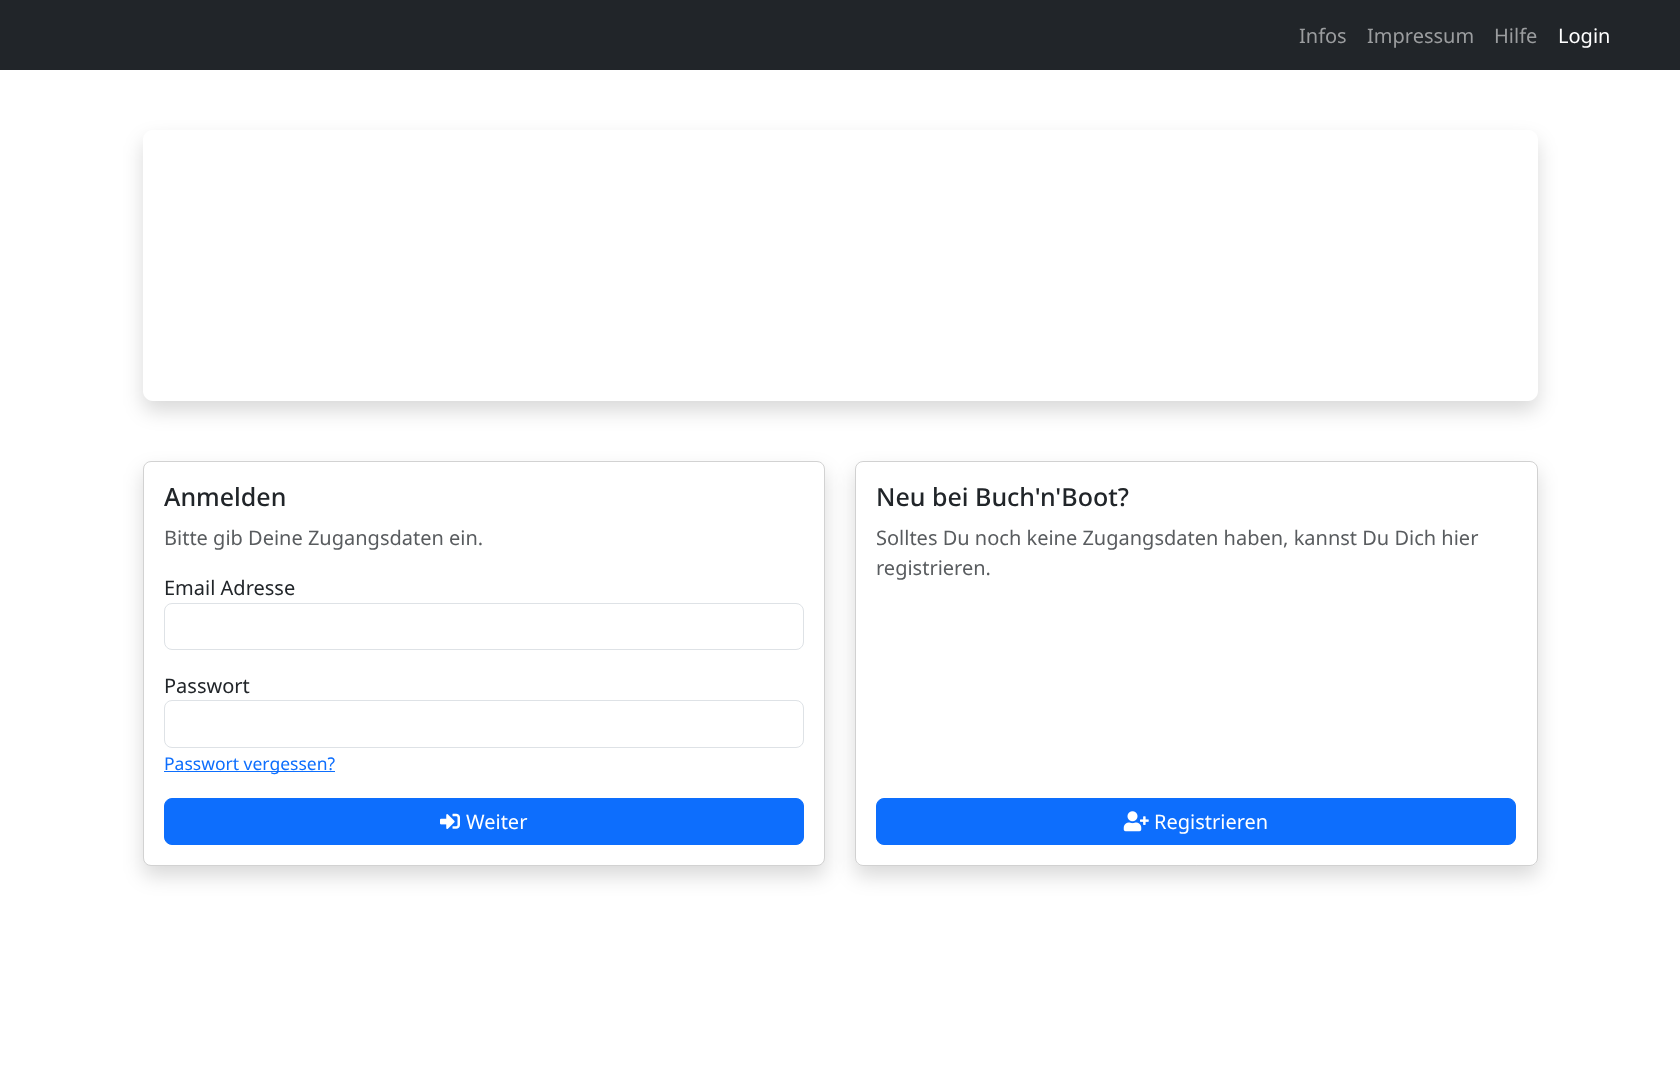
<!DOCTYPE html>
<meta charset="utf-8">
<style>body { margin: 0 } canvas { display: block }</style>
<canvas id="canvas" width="1680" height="1076"></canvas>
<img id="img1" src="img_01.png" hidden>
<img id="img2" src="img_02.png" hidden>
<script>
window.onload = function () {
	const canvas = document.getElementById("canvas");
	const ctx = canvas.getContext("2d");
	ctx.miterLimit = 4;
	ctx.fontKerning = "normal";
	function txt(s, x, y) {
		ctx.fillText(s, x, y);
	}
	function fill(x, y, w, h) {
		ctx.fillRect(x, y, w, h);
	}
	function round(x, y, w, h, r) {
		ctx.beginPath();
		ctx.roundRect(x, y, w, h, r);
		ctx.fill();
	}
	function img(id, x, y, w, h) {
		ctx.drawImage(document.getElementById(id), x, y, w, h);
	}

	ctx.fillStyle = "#FFFFFF";
	fill(0, 0, 1680, 1076);
	ctx.fillStyle = "#212529";
	fill(0, 0, 1680, 70);
	ctx.save();
	ctx.beginPath();
	ctx.moveTo(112, 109);
	ctx.lineTo(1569, 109);
	ctx.lineTo(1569, 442);
	ctx.lineTo(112, 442);
	ctx.closePath();
	ctx.moveTo(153, 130);
	ctx.lineTo(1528, 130);
	ctx.bezierCurveTo(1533.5, 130, 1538, 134.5, 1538, 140);
	ctx.lineTo(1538, 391);
	ctx.bezierCurveTo(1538, 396.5, 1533.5, 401, 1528, 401);
	ctx.lineTo(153, 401);
	ctx.bezierCurveTo(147.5, 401, 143, 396.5, 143, 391);
	ctx.lineTo(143, 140);
	ctx.bezierCurveTo(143, 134.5, 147.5, 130, 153, 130);
	ctx.closePath();
	ctx.clip("evenodd");
	ctx.fillStyle = "rgba(0, 0, 0, 0.15)";
	ctx.filter = "blur(10px)";
	ctx.beginPath();
	ctx.roundRect(143, 140, 1395, 271, 10);
	ctx.fill();
	ctx.filter = "none";
	ctx.restore();
	ctx.fillStyle = "rgba(0, 0, 0, 0.15)";
	ctx.filter = "blur(10px)";
	ctx.beginPath();
	ctx.roundRect(143, 471, 682, 405, 8);
	ctx.fill();
	ctx.filter = "none";
	ctx.fillStyle = "#FFFFFF";
	ctx.beginPath();
	ctx.roundRect(143.5, 461.5, 681, 404, 7.5);
	ctx.fill();
	ctx.strokeStyle = "#D2D2D2";
	ctx.stroke();
	ctx.beginPath();
	ctx.roundRect(164.5, 603.5, 639, 46, 7.5);
	ctx.strokeStyle = "#DEE2E6";
	ctx.stroke();
	ctx.beginPath();
	ctx.roundRect(164.5, 700.5, 639, 47, 7.5);
	ctx.stroke();
	ctx.fillStyle = "#0D6EFD";
	fill(164, 771, 171, 1);
	ctx.beginPath();
	ctx.roundRect(164.5, 798.5, 639, 46, 7.5);
	ctx.fill();
	ctx.strokeStyle = "#0D6EFD";
	ctx.stroke();
	img("img1", 440, 813, 20, 16);
	ctx.fillStyle = "rgba(0, 0, 0, 0.15)";
	ctx.filter = "blur(10px)";
	ctx.beginPath();
	ctx.roundRect(855, 471, 683, 405, 8);
	ctx.fill();
	ctx.filter = "none";
	ctx.fillStyle = "#FFFFFF";
	round(855, 461, 683, 405, 8);
	ctx.beginPath();
	ctx.roundRect(855.5, 461.5, 682, 404, 7.5);
	ctx.strokeStyle = "rgba(0, 0, 0, 0.18)";
	ctx.stroke();
	ctx.fillStyle = "#0D6EFD";
	ctx.beginPath();
	ctx.roundRect(876.5, 798.5, 639, 46, 7.5);
	ctx.fill();
	ctx.strokeStyle = "#0D6EFD";
	ctx.stroke();
	img("img2", 1123, 811, 26, 21);
	ctx.font = "20px Noto Sans";
	ctx.fillStyle = "#9B9D9F";
	txt("Infos", 1299, 43);
	txt("Impressum", 1367, 43);
	txt("Hilfe", 1494, 43);
	ctx.fillStyle = "#FFFFFF";
	txt("Login", 1558, 43);
	ctx.font = "500 25px Noto Sans";
	ctx.fillStyle = "#212529";
	txt("Anmelden", 164, 506);
	ctx.font = "20px Noto Sans";
	ctx.fillStyle = "#595C5F";
	txt("Bitte gib Deine Zugangsdaten ein.", 164, 545);
	ctx.fillStyle = "#212529";
	txt("Email Adresse", 164, 595);
	txt("Passwort", 164, 693);
	ctx.font = "17.5px Noto Sans";
	ctx.fillStyle = "#0D6EFD";
	txt("Passwort vergessen?", 164, 770);
	ctx.font = "20px Noto Sans";
	ctx.fillStyle = "#FFFFFF";
	txt("Weiter", 466, 829);
	ctx.font = "500 25px Noto Sans";
	ctx.fillStyle = "#212529";
	txt("Neu bei Buch'n'Boot?", 876, 506);
	ctx.font = "20px Noto Sans";
	ctx.fillStyle = "#595C5F";
	txt("Solltes Du noch keine Zugangsdaten haben, kannst Du Dich hier", 876, 545);
	txt("registrieren.", 876, 575);
	ctx.fillStyle = "#FFFFFF";
	txt("Registrieren", 1154, 829);
};
</script>
